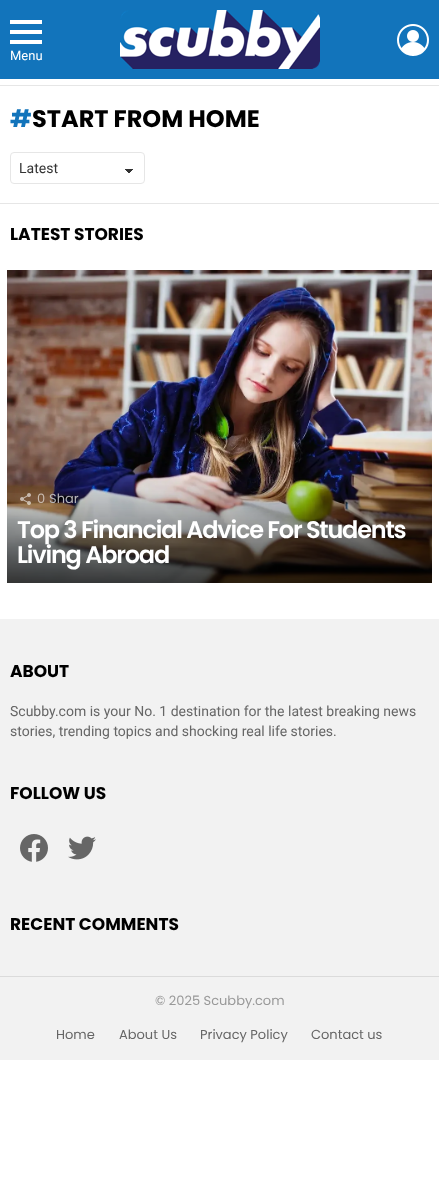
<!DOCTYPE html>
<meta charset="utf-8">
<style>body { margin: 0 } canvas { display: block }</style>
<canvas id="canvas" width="439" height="1197"></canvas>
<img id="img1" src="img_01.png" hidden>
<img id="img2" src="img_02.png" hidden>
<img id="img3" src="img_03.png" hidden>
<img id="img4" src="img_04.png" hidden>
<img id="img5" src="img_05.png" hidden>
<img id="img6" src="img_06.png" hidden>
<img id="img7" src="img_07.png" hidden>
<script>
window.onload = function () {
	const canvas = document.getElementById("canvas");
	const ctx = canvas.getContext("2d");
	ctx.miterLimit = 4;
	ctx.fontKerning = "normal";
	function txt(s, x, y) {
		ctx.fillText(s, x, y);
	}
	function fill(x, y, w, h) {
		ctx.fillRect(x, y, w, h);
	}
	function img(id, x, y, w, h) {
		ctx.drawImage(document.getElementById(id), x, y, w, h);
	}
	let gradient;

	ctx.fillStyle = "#FFFFFF";
	fill(0, 0, 439, 1197);
	ctx.fillStyle = "#1274BB";
	fill(0, 0, 439, 79);
	img("img1", 10, 20, 32, 24);
	img("img2", 120, 10, 200, 59);
	img("img3", 397, 24, 32, 32);
	ctx.fillStyle = "#E6E6E6";
	fill(0, 85, 439, 1);
	gradient = ctx.createLinearGradient(129, 169, 134, 173);
	gradient.addColorStop(0.5, "#333333");
	gradient.addColorStop(0.5, "#FFFFFF");
	ctx.fillStyle = gradient;
	fill(129, 169, 5, 4);
	gradient = ctx.createLinearGradient(124, 173, 129, 169);
	gradient.addColorStop(0.5, "#FFFFFF");
	gradient.addColorStop(0.5, "#333333");
	ctx.fillStyle = gradient;
	fill(124, 169, 5, 4);
	ctx.beginPath();
	ctx.roundRect(10.5, 152.5, 134, 31, 3.5);
	ctx.strokeStyle = "#E6E6E6";
	ctx.stroke();
	ctx.fillStyle = "#E6E6E6";
	fill(0, 203, 439, 1);
	img("img4", 7, 270, 425, 313);
	img("img5", 20, 493, 11, 12);
	ctx.fillStyle = "#F2F2F2";
	fill(0, 619, 439, 357);
	img("img6", 20, 834, 28, 28);
	img("img7", 68, 836, 28, 24);
	ctx.fillStyle = "#DBDBDB";
	fill(0, 976, 439, 1);
	ctx.fillStyle = "#F2F2F2";
	fill(0, 977, 439, 83);
	ctx.font = "13px Roboto";
	ctx.fillStyle = "#FFFFFF";
	txt("Menu", 10, 60);
	ctx.font = "bold 24px Poppins";
	ctx.fillStyle = "#1274BB";
	txt("#", 10, 127);
	ctx.fillStyle = "#000000";
	txt("START FROM HOME", 32, 127);
	ctx.font = "14px Roboto";
	ctx.fillStyle = "#333333";
	txt("Latest", 19, 173);
	ctx.font = "bold 17px Poppins";
	ctx.fillStyle = "#000000";
	txt("LATEST STORIES", 10, 240);
	ctx.font = "13px Poppins";
	ctx.fillStyle = "#CABCB0";
	txt("0", 37, 503);
	ctx.fillStyle = "#B7B5B9";
	txt("Shar", 49, 503);
	ctx.letterSpacing = "-1.2px";
	ctx.font = "600 24px Poppins";
	ctx.fillStyle = "#FFFFFF";
	txt("Top 3 Financial Advice For Students", 17, 538);
	txt("Living Abroad", 17, 563);
	ctx.letterSpacing = "0px";
	ctx.font = "bold 17px Poppins";
	ctx.fillStyle = "#000000";
	txt("ABOUT", 10, 677);
	ctx.font = "14px Roboto";
	ctx.fillStyle = "#666666";
	txt("Scubby.com is your No. 1 destination for the latest breaking news", 10, 716);
	txt("stories, trending topics and shocking real life stories.", 10, 736);
	ctx.font = "bold 17px Poppins";
	ctx.fillStyle = "#000000";
	txt("FOLLOW US", 10, 799);
	txt("RECENT COMMENTS", 10, 930);
	ctx.font = "13px Poppins";
	ctx.fillStyle = "#999999";
	txt("© 2025 Scubby.com", 155, 1005);
	ctx.fillStyle = "#666666";
	txt("Home", 56, 1039);
	txt("About Us", 119, 1039);
	txt("Privacy Policy", 200, 1039);
	txt("Contact us", 311, 1039);
};
</script>
